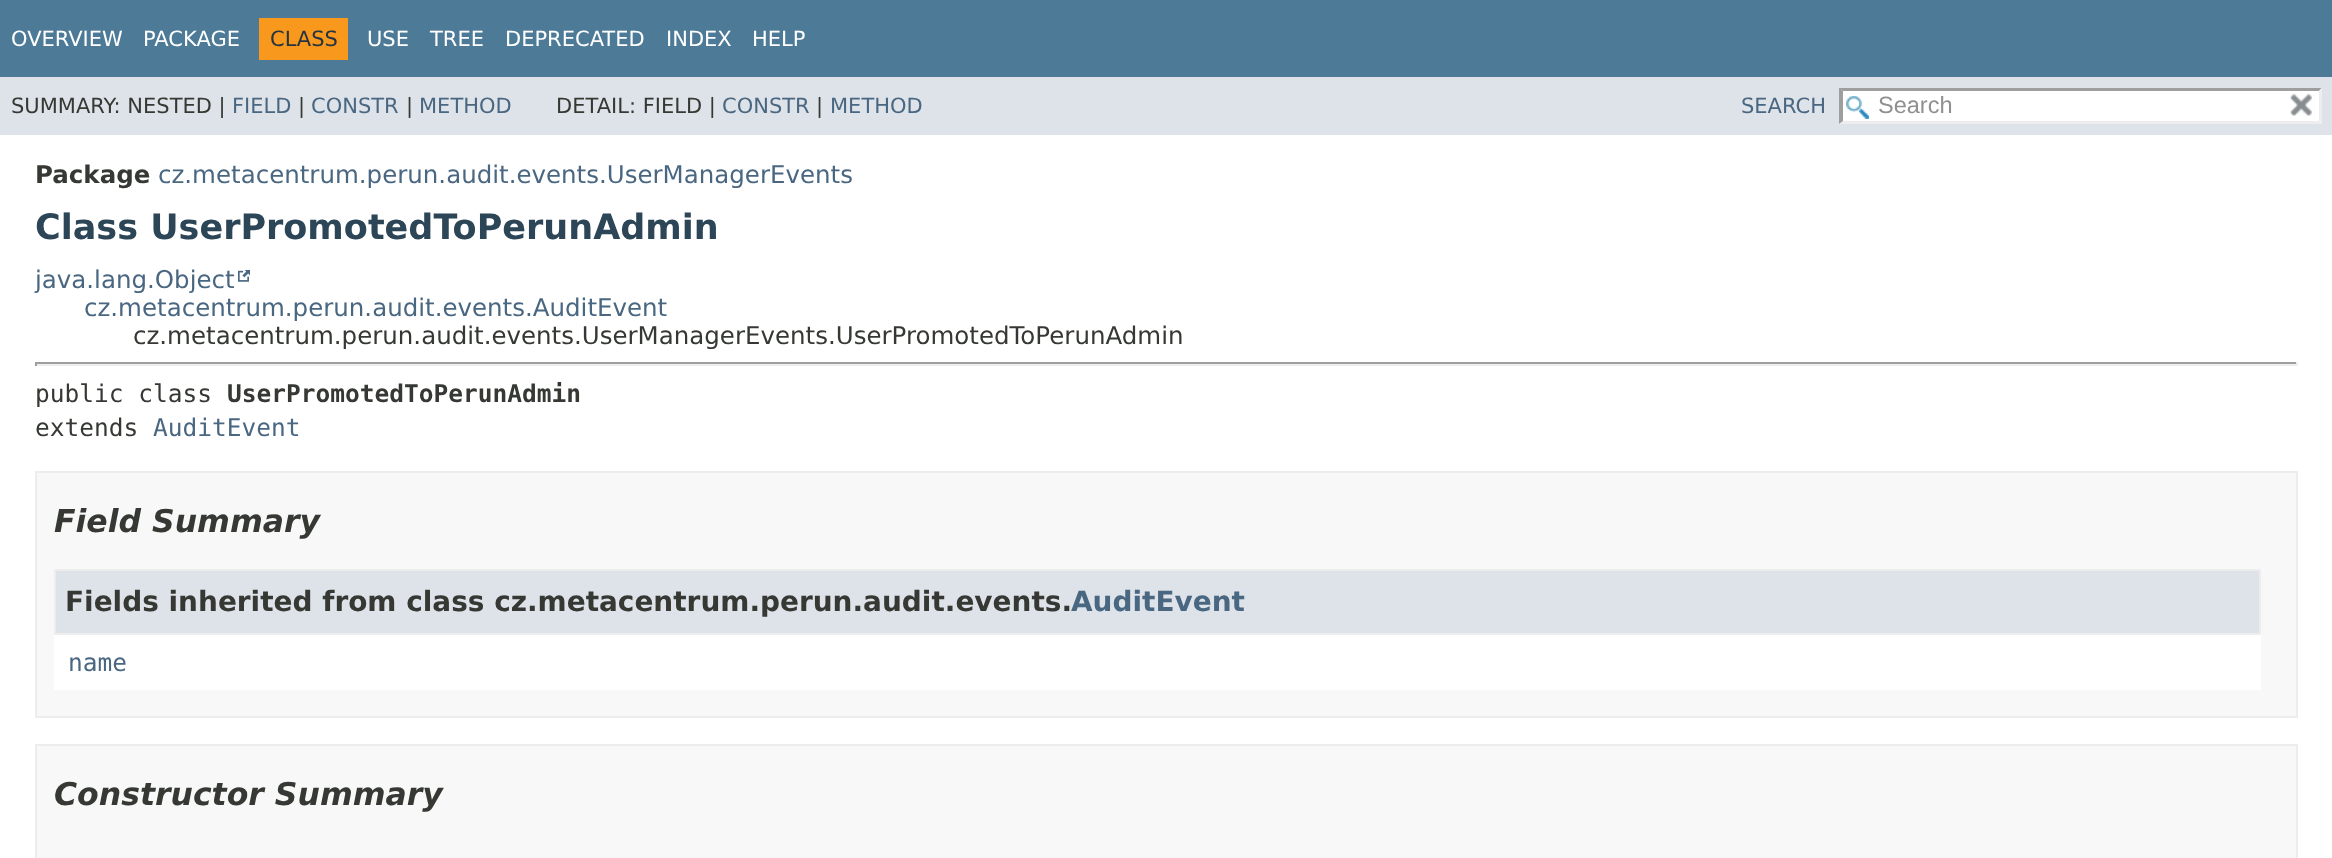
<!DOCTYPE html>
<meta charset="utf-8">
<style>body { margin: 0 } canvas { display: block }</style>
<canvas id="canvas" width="2332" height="858"></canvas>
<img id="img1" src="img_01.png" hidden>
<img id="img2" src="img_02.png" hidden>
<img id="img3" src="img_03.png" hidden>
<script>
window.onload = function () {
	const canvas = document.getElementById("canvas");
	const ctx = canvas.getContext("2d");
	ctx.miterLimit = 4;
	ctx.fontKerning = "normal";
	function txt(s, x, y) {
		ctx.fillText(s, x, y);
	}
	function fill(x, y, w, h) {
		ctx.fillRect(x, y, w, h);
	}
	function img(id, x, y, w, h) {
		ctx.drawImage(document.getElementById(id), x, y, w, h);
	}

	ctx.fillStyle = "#FFFFFF";
	fill(0, 0, 2332, 858);
	ctx.fillStyle = "#4D7A97";
	fill(0, 0, 2332, 77);
	ctx.fillStyle = "#F8981D";
	fill(259, 18, 89, 42);
	ctx.fillStyle = "#DEE3E9";
	fill(0, 77, 2332, 58);
	ctx.fillStyle = "#FFFFFF";
	fill(1839, 88, 483, 36);
	img("img1", 1846, 96, 23, 23);
	ctx.fillStyle = "#9E9E9E";
	ctx.beginPath();
	ctx.moveTo(1839, 88);
	ctx.lineTo(2322, 88);
	ctx.lineTo(2319, 91);
	ctx.lineTo(1843, 91);
	ctx.closePath();
	ctx.fill();
	ctx.fillStyle = "#EDEDED";
	ctx.beginPath();
	ctx.moveTo(2322, 87.5);
	ctx.lineTo(2322, 124);
	ctx.lineTo(2319, 121);
	ctx.lineTo(2319, 91);
	ctx.closePath();
	ctx.fill();
	ctx.beginPath();
	ctx.moveTo(2322, 124);
	ctx.lineTo(1839, 124);
	ctx.lineTo(1843, 121);
	ctx.lineTo(2319, 121);
	ctx.closePath();
	ctx.fill();
	ctx.fillStyle = "#9E9E9E";
	ctx.beginPath();
	ctx.moveTo(1839, 124);
	ctx.lineTo(1839, 87.5);
	ctx.lineTo(1843, 91);
	ctx.lineTo(1843, 121);
	ctx.closePath();
	ctx.fill();
	img("img2", 2290, 93, 22, 23);
	img("img3", 238, 270, 12, 12);
	ctx.fillStyle = "#9F9F9F";
	fill(35, 362, 2263, 2);
	ctx.fillStyle = "#EEEEEE";
	fill(2296, 362, 2, 4);
	fill(35, 364, 2263, 2);
	ctx.fillStyle = "#9F9F9F";
	fill(35, 362, 2, 4);
	ctx.fillStyle = "#F8F8F8";
	ctx.beginPath();
	ctx.rect(36, 472, 2261, 245);
	ctx.fill();
	ctx.strokeStyle = "#EDEDED";
	ctx.lineWidth = 2;
	ctx.stroke();
	ctx.fillStyle = "#FFFFFF";
	fill(54, 635, 2207, 55);
	ctx.fillStyle = "#DEE3E9";
	ctx.beginPath();
	ctx.rect(55, 570, 2205, 64);
	ctx.fill();
	ctx.stroke();
	ctx.fillStyle = "#F8F8F8";
	ctx.beginPath();
	ctx.rect(36, 745, 2261, 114);
	ctx.fill();
	ctx.stroke();
	ctx.font = "21px DejaVu Sans";
	ctx.fillStyle = "#FFFFFF";
	txt("OVERVIEW", 11, 46);
	txt("PACKAGE", 143, 46);
	ctx.fillStyle = "#253441";
	txt("CLASS", 270, 46);
	ctx.fillStyle = "#FFFFFF";
	txt("USE", 367, 46);
	txt("TREE", 430, 46);
	txt("DEPRECATED", 505, 46);
	txt("INDEX", 666, 46);
	txt("HELP", 752, 46);
	ctx.fillStyle = "#353833";
	txt("SUMMARY: NESTED |", 11, 113);
	ctx.fillStyle = "#4A6782";
	txt("FIELD", 232, 113);
	ctx.fillStyle = "#353833";
	txt("|", 298, 113);
	ctx.fillStyle = "#4A6782";
	txt("CONSTR", 311, 113);
	ctx.fillStyle = "#353833";
	txt("|", 406, 113);
	ctx.fillStyle = "#4A6782";
	txt("METHOD", 419, 113);
	ctx.fillStyle = "#353833";
	txt("DETAIL: FIELD |", 556, 113);
	ctx.fillStyle = "#4A6782";
	txt("CONSTR", 722, 113);
	ctx.fillStyle = "#353833";
	txt("|", 816, 113);
	ctx.fillStyle = "#4A6782";
	txt("METHOD", 830, 113);
	txt("SEARCH", 1741, 113);
	ctx.font = "23.5px Liberation Sans";
	ctx.fillStyle = "#909090";
	txt("Search", 1878, 113);
	ctx.font = "bold 24.5px DejaVu Sans";
	ctx.fillStyle = "#353833";
	txt("Package", 35, 183);
	ctx.font = "24.5px DejaVu Sans";
	ctx.fillStyle = "#4A6782";
	txt("cz.metacentrum.perun.audit.events.UserManagerEvents", 158, 183);
	ctx.font = "bold 35px DejaVu Sans";
	ctx.fillStyle = "#2C4557";
	txt("Class UserPromotedToPerunAdmin", 35, 239);
	ctx.font = "24.5px DejaVu Sans";
	ctx.fillStyle = "#4A6782";
	txt("java.lang.Object", 35, 288);
	txt("cz.metacentrum.perun.audit.events.AuditEvent", 84, 316);
	ctx.fillStyle = "#353833";
	txt("cz.metacentrum.perun.audit.events.UserManagerEvents.UserPromotedToPerunAdmin", 133, 344);
	ctx.font = "24.5px DejaVu Sans Mono";
	txt("public class", 35, 402);
	ctx.font = "bold 24.5px DejaVu Sans Mono";
	txt("UserPromotedToPerunAdmin", 227, 402);
	ctx.font = "24.5px DejaVu Sans Mono";
	txt("extends", 35, 436);
	ctx.fillStyle = "#4A6782";
	txt("AuditEvent", 153, 436);
	ctx.font = "italic bold 31.5px DejaVu Sans";
	ctx.fillStyle = "#353833";
	txt("Field Summary", 54, 532);
	ctx.font = "bold 27.95px DejaVu Sans";
	txt("Fields inherited from class cz.metacentrum.perun.audit.events.", 65, 611);
	ctx.fillStyle = "#4A6782";
	txt("AuditEvent", 1071, 611);
	ctx.font = "24.5px DejaVu Sans Mono";
	txt("name", 68, 671);
	ctx.font = "italic bold 31.5px DejaVu Sans";
	ctx.fillStyle = "#353833";
	txt("Constructor Summary", 54, 805);
};
</script>
